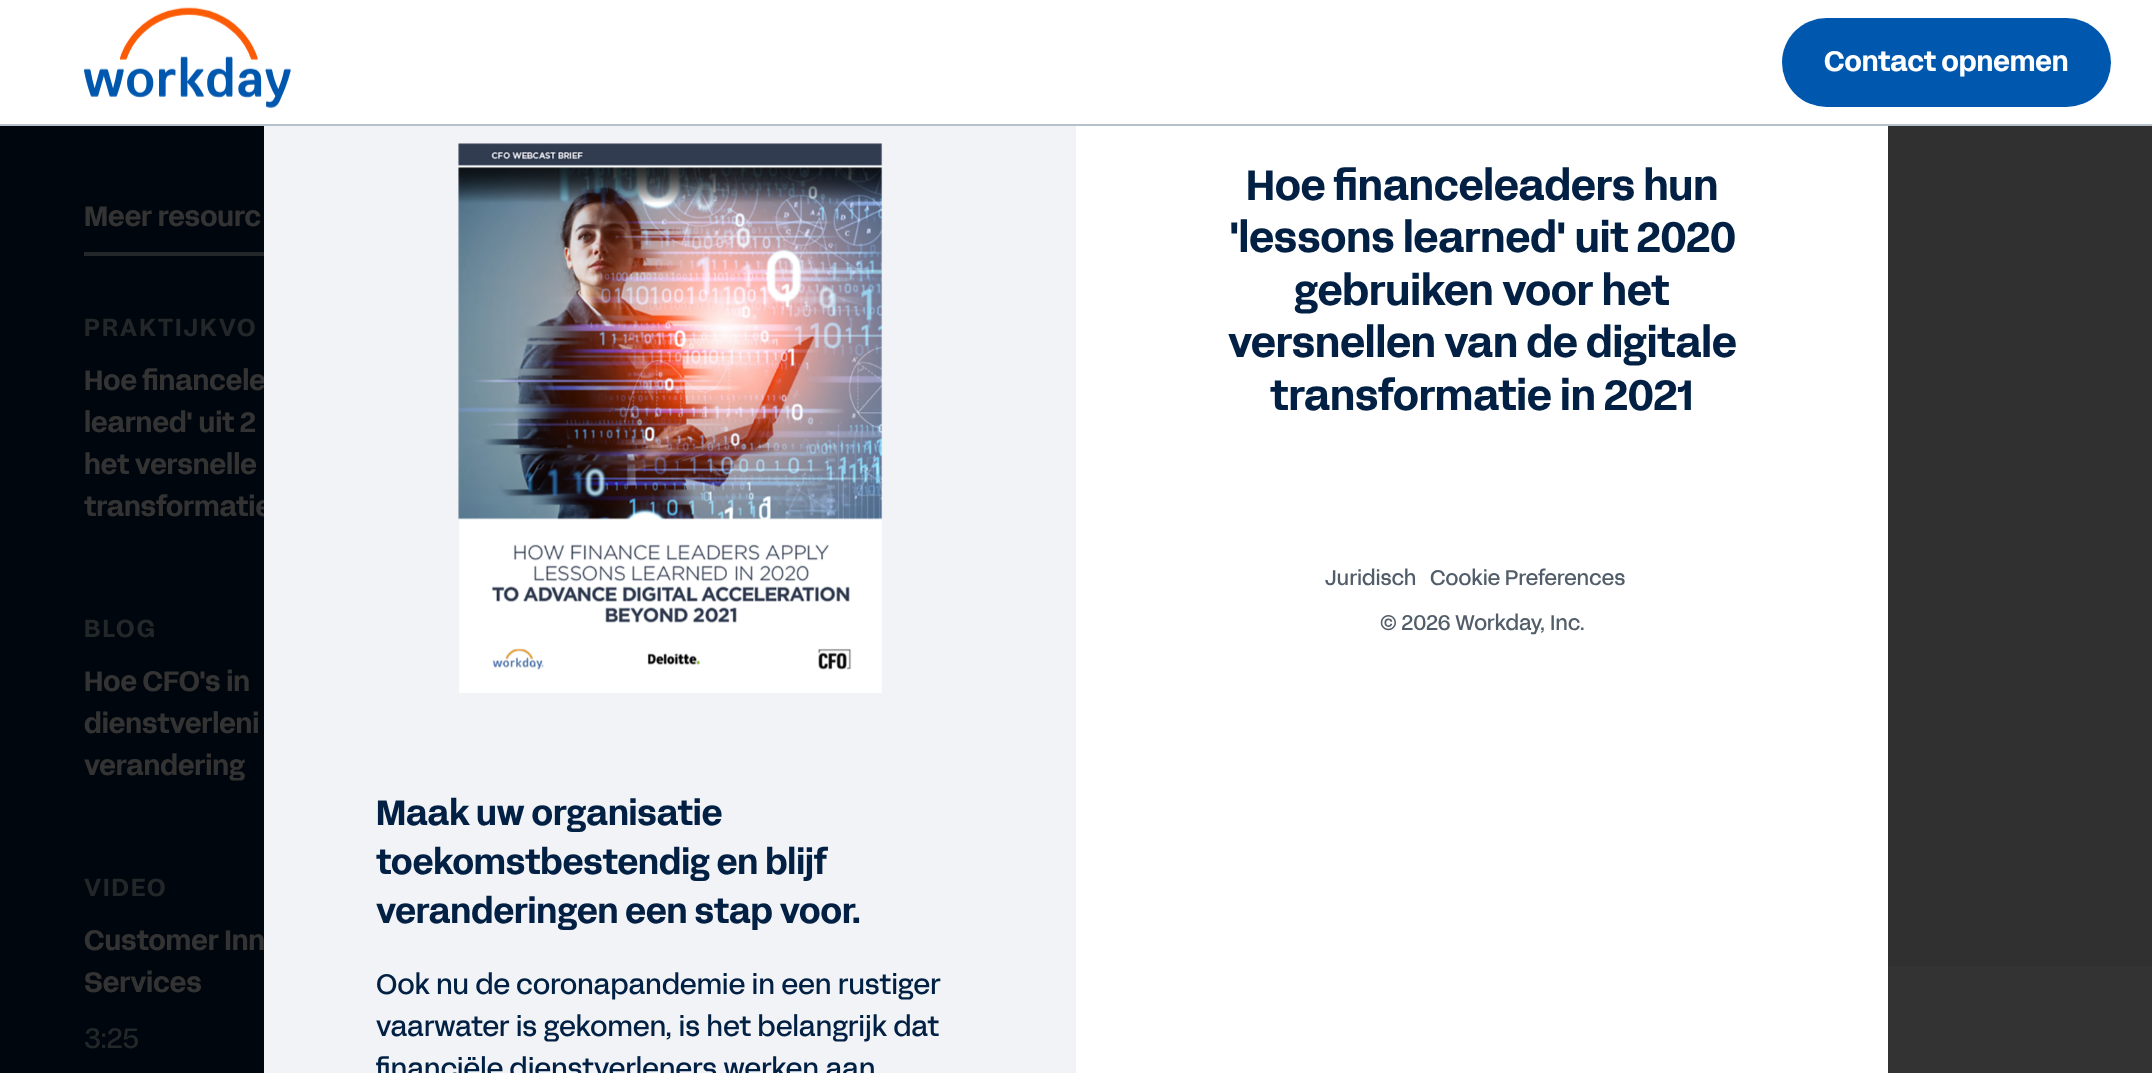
<!DOCTYPE html>
<meta charset="utf-8">
<style>body { margin: 0 } canvas { display: block }</style>
<canvas id="canvas" width="2152" height="1073"></canvas>
<img id="img1" src="img_01.png" hidden>
<img id="img2" src="img_02.png" hidden>
<script>
window.onload = function () {
	const canvas = document.getElementById("canvas");
	const ctx = canvas.getContext("2d");
	ctx.miterLimit = 4;
	ctx.fontKerning = "normal";
	function txt(s, x, y) {
		ctx.fillText(s, x, y);
	}
	function fill(x, y, w, h) {
		ctx.fillRect(x, y, w, h);
	}
	function round(x, y, w, h, r) {
		ctx.beginPath();
		ctx.roundRect(x, y, w, h, r);
		ctx.fill();
	}
	function img(id, x, y, w, h) {
		ctx.drawImage(document.getElementById(id), x, y, w, h);
	}

	ctx.fillStyle = "#333333";
	fill(0, 0, 2152, 1073);
	ctx.fillStyle = "#FFFFFF";
	fill(0, 0, 2152, 124);
	ctx.fillStyle = "#B6C1CC";
	fill(0, 124, 2152, 2);
	img("img1", 84, 7, 207, 101);
	ctx.fillStyle = "#0057AE";
	round(1782, 18, 329, 89, 44.5);
	ctx.fillStyle = "#00060D";
	fill(0, 126, 264, 947);
	ctx.fillStyle = "#242729";
	fill(84, 252, 180, 4);
	ctx.fillStyle = "#303030";
	fill(1888, 126, 264, 840);
	ctx.fillStyle = "#FFFFFF";
	fill(1076, 126, 812, 947);
	ctx.font = "bold 28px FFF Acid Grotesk";
	txt("Contact opnemen", 1824, 71);
	ctx.fillStyle = "#333333";
	txt("Meer resourc", 84, 226);
	ctx.letterSpacing = "2px";
	ctx.font = "bold 24.5px FFF Acid Grotesk";
	ctx.fillStyle = "#242729";
	txt("PRAKTIJKVO", 84, 336);
	ctx.letterSpacing = "0px";
	ctx.font = "bold 28px FFF Acid Grotesk";
	ctx.fillStyle = "#333333";
	txt("Hoe financele", 84, 390);
	txt("learned' uit 2", 84, 432);
	txt("het versnelle", 84, 474);
	txt("transformatie", 84, 516);
	ctx.letterSpacing = "2px";
	ctx.font = "bold 24.5px FFF Acid Grotesk";
	ctx.fillStyle = "#242729";
	txt("BLOG", 84, 637);
	ctx.letterSpacing = "0px";
	ctx.font = "bold 28px FFF Acid Grotesk";
	ctx.fillStyle = "#333333";
	txt("Hoe CFO's in", 84, 691);
	txt("dienstverleni", 84, 733);
	txt("verandering", 84, 775);
	ctx.letterSpacing = "2px";
	ctx.font = "bold 24.5px FFF Acid Grotesk";
	ctx.fillStyle = "#242729";
	txt("VIDEO", 84, 896);
	ctx.letterSpacing = "0px";
	ctx.font = "bold 28px FFF Acid Grotesk";
	ctx.fillStyle = "#333333";
	txt("Customer Inn", 84, 950);
	txt("Services", 84, 992);
	ctx.font = "28px FFF Acid Grotesk";
	ctx.fillStyle = "#242729";
	txt("3:25", 84, 1048);
	ctx.font = "bold 42px FFF Acid Grotesk";
	ctx.fillStyle = "#022043";
	txt("Hoe financeleaders hun", 1246, 200);
	txt("'lessons learned' uit 2020", 1229, 252);
	txt("gebruiken voor het", 1294, 305);
	txt("versnellen van de digitale", 1228, 357);
	txt("transformatie in 2021", 1270, 410);
	ctx.font = "21px FFF Acid Grotesk";
	ctx.fillStyle = "#525D6A";
	txt("Juridisch", 1325, 585);
	txt("Cookie Preferences", 1430, 585);
	txt("© 2026 Workday, Inc.", 1380, 630);
	ctx.fillStyle = "#F1F3F6";
	fill(264, 126, 812, 947);
	img("img2", 458, 143, 425, 550);
	ctx.font = "bold 35px FFF Acid Grotesk";
	ctx.fillStyle = "#022043";
	txt("Maak uw organisatie", 376, 825);
	txt("toekomstbestendig en blijf", 376, 874);
	txt("veranderingen een stap voor.", 376, 923);
	ctx.font = "28px FFF Acid Grotesk";
	txt("Ook nu de coronapandemie in een rustiger", 376, 994);
	txt("vaarwater is gekomen, is het belangrijk dat", 376, 1036);
	txt("financiële dienstverleners werken aan", 376, 1078);
};
</script>
